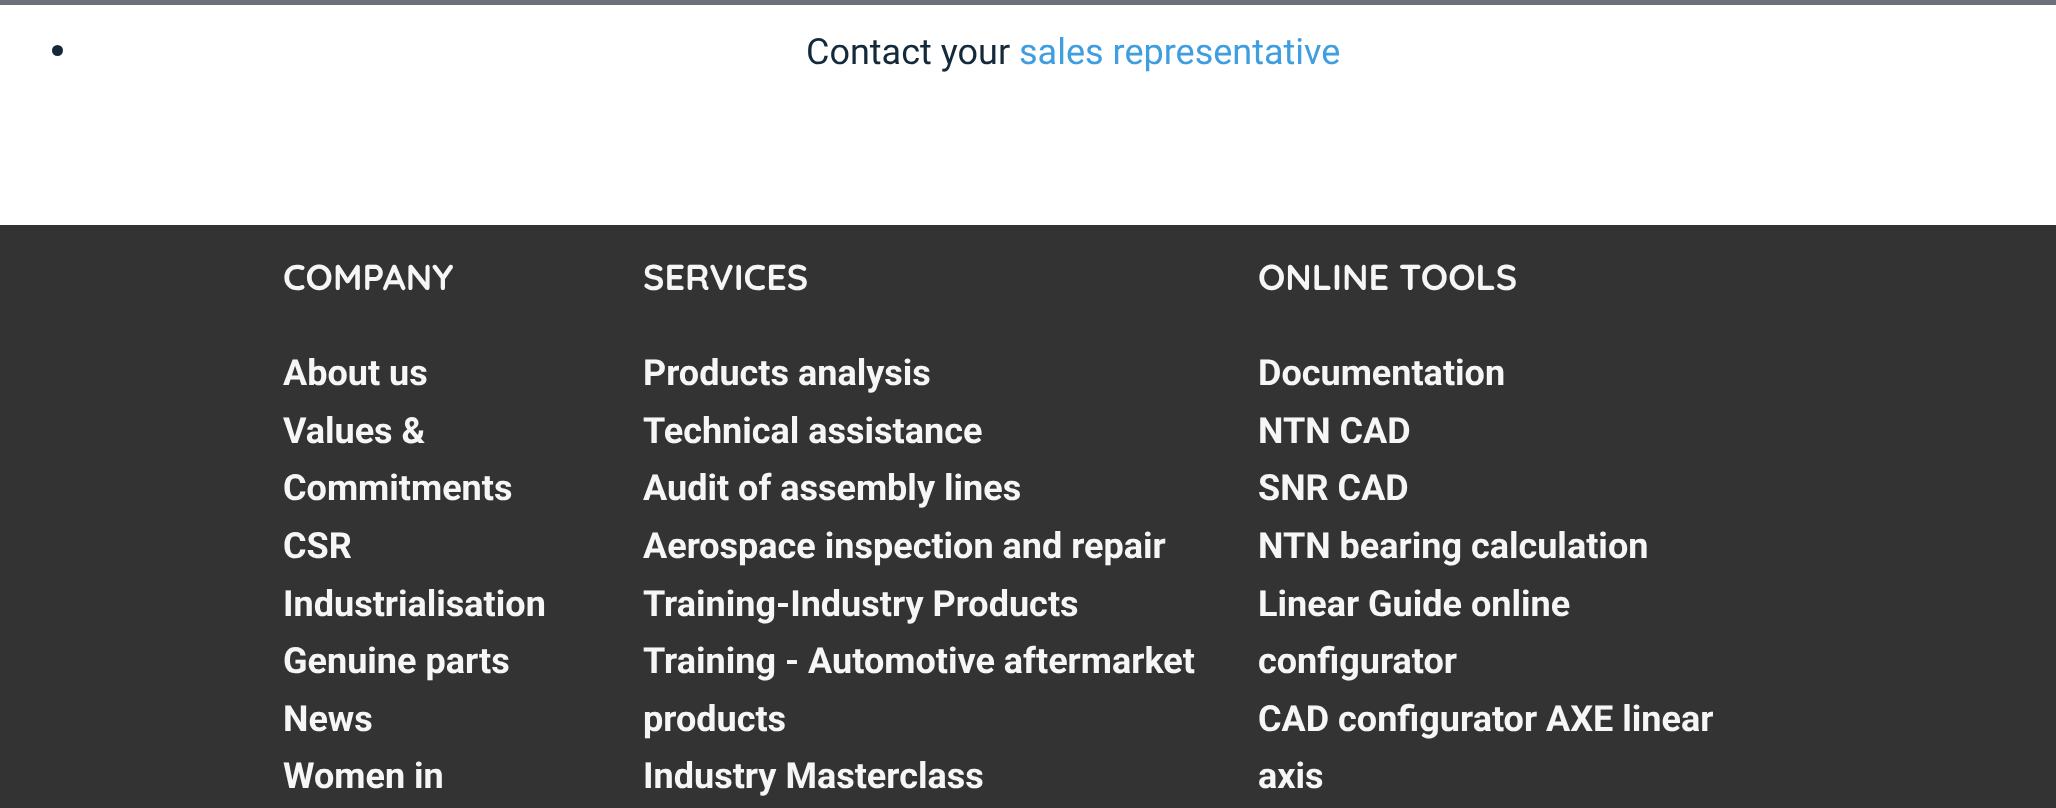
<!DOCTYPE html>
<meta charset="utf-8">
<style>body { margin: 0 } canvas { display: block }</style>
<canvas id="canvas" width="2056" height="808"></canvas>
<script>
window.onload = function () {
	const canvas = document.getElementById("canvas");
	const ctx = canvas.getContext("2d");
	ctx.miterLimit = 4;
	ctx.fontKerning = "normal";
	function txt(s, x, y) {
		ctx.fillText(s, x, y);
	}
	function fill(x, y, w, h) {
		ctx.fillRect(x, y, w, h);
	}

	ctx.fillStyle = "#FFFFFF";
	fill(0, 0, 2056, 808);
	ctx.fillStyle = "#6C7079";
	fill(0, 0, 2056, 5);
	ctx.fillStyle = "#14293A";
	ctx.beginPath();
	ctx.arc(57.5, 50.5, 5.5, 0, Math.PI * 2);
	ctx.fill();
	ctx.fillStyle = "#333333";
	fill(0, 225, 2056, 583);
	ctx.font = "36px Roboto";
	ctx.fillStyle = "#14293A";
	txt("Contact your", 806, 64);
	ctx.fillStyle = "#3E9EDF";
	txt("sales representative", 1019, 64);
	ctx.font = "bold 36px Quicksand";
	ctx.fillStyle = "#F6F6F6";
	txt("COMPANY", 283, 290);
	ctx.font = "bold 36px Roboto";
	txt("About us", 283, 385);
	txt("Values &", 283, 443);
	txt("Commitments", 283, 500);
	txt("CSR", 283, 558);
	txt("Industrialisation", 283, 616);
	txt("Genuine parts", 283, 673);
	txt("News", 283, 731);
	txt("Women in", 283, 788);
	ctx.font = "bold 36px Quicksand";
	txt("SERVICES", 643, 290);
	ctx.font = "bold 36px Roboto";
	txt("Products analysis", 643, 385);
	txt("Technical assistance", 643, 443);
	txt("Audit of assembly lines", 643, 500);
	txt("Aerospace inspection and repair", 643, 558);
	txt("Training-Industry Products", 643, 616);
	txt("Training - Automotive aftermarket", 643, 673);
	txt("products", 643, 731);
	txt("Industry Masterclass", 643, 788);
	ctx.font = "bold 36px Quicksand";
	txt("ONLINE TOOLS", 1258, 290);
	ctx.font = "bold 36px Roboto";
	txt("Documentation", 1258, 385);
	txt("NTN CAD", 1258, 443);
	txt("SNR CAD", 1258, 500);
	txt("NTN bearing calculation", 1258, 558);
	txt("Linear Guide online", 1258, 616);
	txt("configurator", 1258, 673);
	txt("CAD configurator AXE linear", 1258, 731);
	txt("axis", 1258, 788);
};
</script>
